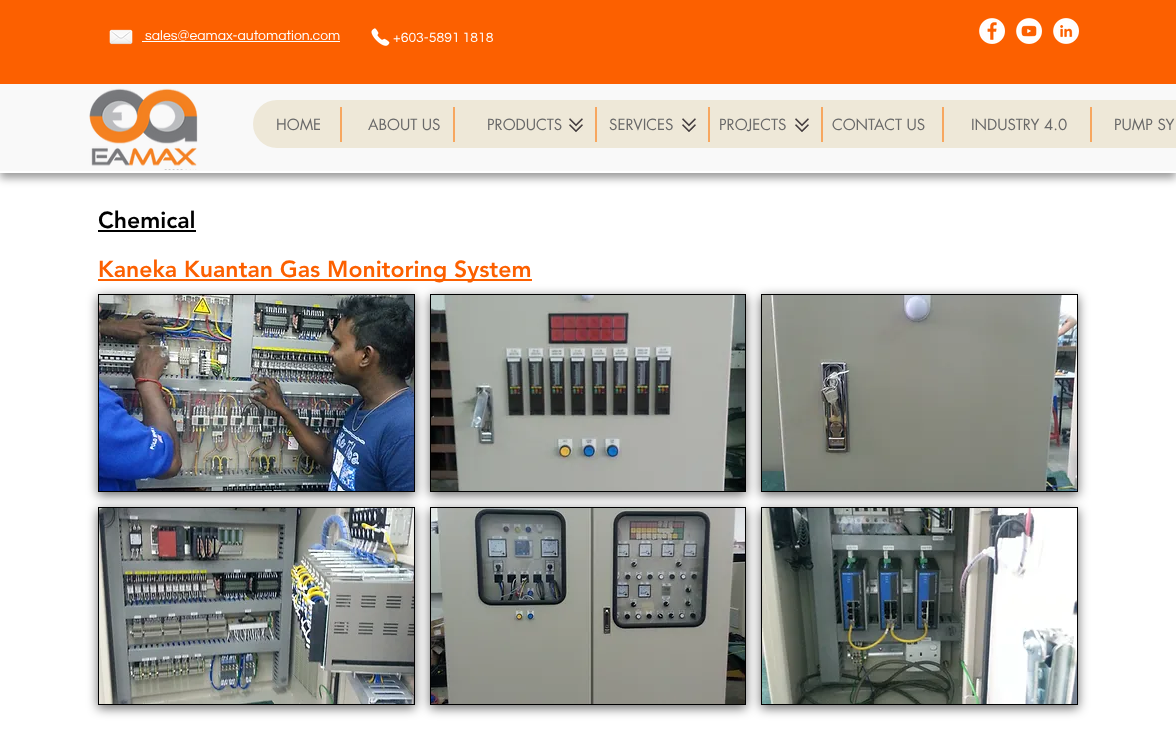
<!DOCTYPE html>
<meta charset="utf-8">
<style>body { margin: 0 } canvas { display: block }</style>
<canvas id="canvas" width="1176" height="737"></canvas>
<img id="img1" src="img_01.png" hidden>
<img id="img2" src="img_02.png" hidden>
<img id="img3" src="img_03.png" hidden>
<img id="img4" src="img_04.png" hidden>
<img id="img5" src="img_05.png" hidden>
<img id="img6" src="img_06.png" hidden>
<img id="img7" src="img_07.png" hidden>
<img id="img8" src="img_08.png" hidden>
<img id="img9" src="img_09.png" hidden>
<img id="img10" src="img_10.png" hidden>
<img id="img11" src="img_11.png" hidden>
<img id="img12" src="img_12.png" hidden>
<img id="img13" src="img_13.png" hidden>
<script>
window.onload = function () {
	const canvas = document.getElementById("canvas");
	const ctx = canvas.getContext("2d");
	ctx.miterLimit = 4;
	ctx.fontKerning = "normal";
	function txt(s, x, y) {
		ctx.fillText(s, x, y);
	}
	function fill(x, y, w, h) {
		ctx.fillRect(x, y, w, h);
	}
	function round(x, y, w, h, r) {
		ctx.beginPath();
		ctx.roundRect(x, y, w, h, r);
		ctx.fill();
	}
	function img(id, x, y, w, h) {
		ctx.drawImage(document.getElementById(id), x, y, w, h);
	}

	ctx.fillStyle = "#FFFFFF";
	fill(0, 0, 1176, 737);
	ctx.fillStyle = "rgba(0, 0, 0, 0.4)";
	ctx.filter = "blur(4px)";
	ctx.beginPath();
	ctx.rect(0, 5, 1176, 173);
	ctx.fill();
	ctx.filter = "none";
	ctx.fillStyle = "#F9F9F9";
	fill(0, 84, 1176, 87);
	ctx.fillStyle = "#FFFFFF";
	fill(0, 171, 1176, 2);
	ctx.fillStyle = "#FC6000";
	fill(0, 0, 1176, 84);
	img("img1", 109, 29, 24, 16);
	ctx.fillStyle = "#FFFFFF";
	fill(142, 41, 198, 1);
	img("img2", 371, 28, 19, 18);
	img("img3", 979, 18, 26, 26);
	img("img4", 1016, 18, 26, 26);
	img("img5", 1053, 18, 26, 26);
	img("img6", 89, 88, 109, 82);
	ctx.fillStyle = "#EEE8D8";
	round(253, 100, 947, 48, 24);
	ctx.fillStyle = "#F7A760";
	fill(340, 107, 2, 35);
	fill(453, 107, 2, 35);
	fill(595, 107, 2, 35);
	fill(708, 107, 2, 35);
	fill(821, 107, 2, 35);
	fill(942, 107, 2, 35);
	fill(1090, 107, 2, 35);
	img("img7", 569, 118, 14, 14);
	img("img7", 682, 118, 14, 14);
	img("img7", 795, 118, 14, 14);
	ctx.fillStyle = "#000000";
	fill(98, 230, 98, 2);
	ctx.fillStyle = "#FC6000";
	fill(98, 279, 434, 2);
	ctx.fillStyle = "rgba(0, 0, 0, 0.6)";
	ctx.filter = "blur(5.5px)";
	ctx.beginPath();
	ctx.rect(98, 297, 317, 198);
	ctx.fill();
	ctx.filter = "none";
	ctx.fillStyle = "#000000";
	fill(98, 294, 317, 198);
	img("img8", 99, 295, 315, 196);
	ctx.fillStyle = "rgba(0, 0, 0, 0.6)";
	ctx.filter = "blur(5.5px)";
	ctx.beginPath();
	ctx.rect(430, 297, 316, 198);
	ctx.fill();
	ctx.filter = "none";
	ctx.fillStyle = "#000000";
	fill(430, 294, 316, 198);
	img("img9", 431, 295, 314, 196);
	ctx.fillStyle = "rgba(0, 0, 0, 0.6)";
	ctx.filter = "blur(5.5px)";
	ctx.beginPath();
	ctx.rect(761, 297, 317, 198);
	ctx.fill();
	ctx.filter = "none";
	ctx.fillStyle = "#000000";
	fill(761, 294, 317, 198);
	img("img10", 762, 295, 315, 196);
	ctx.fillStyle = "rgba(0, 0, 0, 0.6)";
	ctx.filter = "blur(5.5px)";
	ctx.beginPath();
	ctx.rect(98, 510, 317, 198);
	ctx.fill();
	ctx.filter = "none";
	ctx.fillStyle = "#000000";
	fill(98, 507, 317, 198);
	img("img11", 99, 508, 315, 196);
	ctx.fillStyle = "rgba(0, 0, 0, 0.6)";
	ctx.filter = "blur(5.5px)";
	ctx.beginPath();
	ctx.rect(430, 510, 316, 198);
	ctx.fill();
	ctx.filter = "none";
	ctx.fillStyle = "#000000";
	fill(430, 507, 316, 198);
	img("img12", 431, 508, 314, 196);
	ctx.fillStyle = "rgba(0, 0, 0, 0.6)";
	ctx.filter = "blur(5.5px)";
	ctx.beginPath();
	ctx.rect(761, 510, 317, 198);
	ctx.fill();
	ctx.filter = "none";
	ctx.fillStyle = "#000000";
	fill(761, 507, 317, 198);
	img("img13", 762, 508, 315, 196);
	ctx.font = "14px Questrial";
	ctx.fillStyle = "#FFFFFF";
	txt("sales@eamax-automation.com", 145, 40);
	txt("+603-5891 1818", 393, 42);
	ctx.font = "15px futura";
	ctx.fillStyle = "#696969";
	txt("HOME", 276, 130);
	txt("ABOUT US", 368, 130);
	txt("PRODUCTS", 487, 130);
	txt("SERVICES", 609, 130);
	txt("PROJECTS", 719, 130);
	txt("CONTACT US", 832, 130);
	txt("INDUSTRY 4.0", 971, 130);
	txt("PUMP SY", 1114, 130);
	ctx.font = "900 23px 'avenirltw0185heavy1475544'";
	ctx.fillStyle = "#000000";
	txt("Chemical", 98, 228);
	ctx.fillStyle = "#FC6000";
	txt("Kaneka Kuantan Gas Monitoring System", 98, 277);
};
</script>
